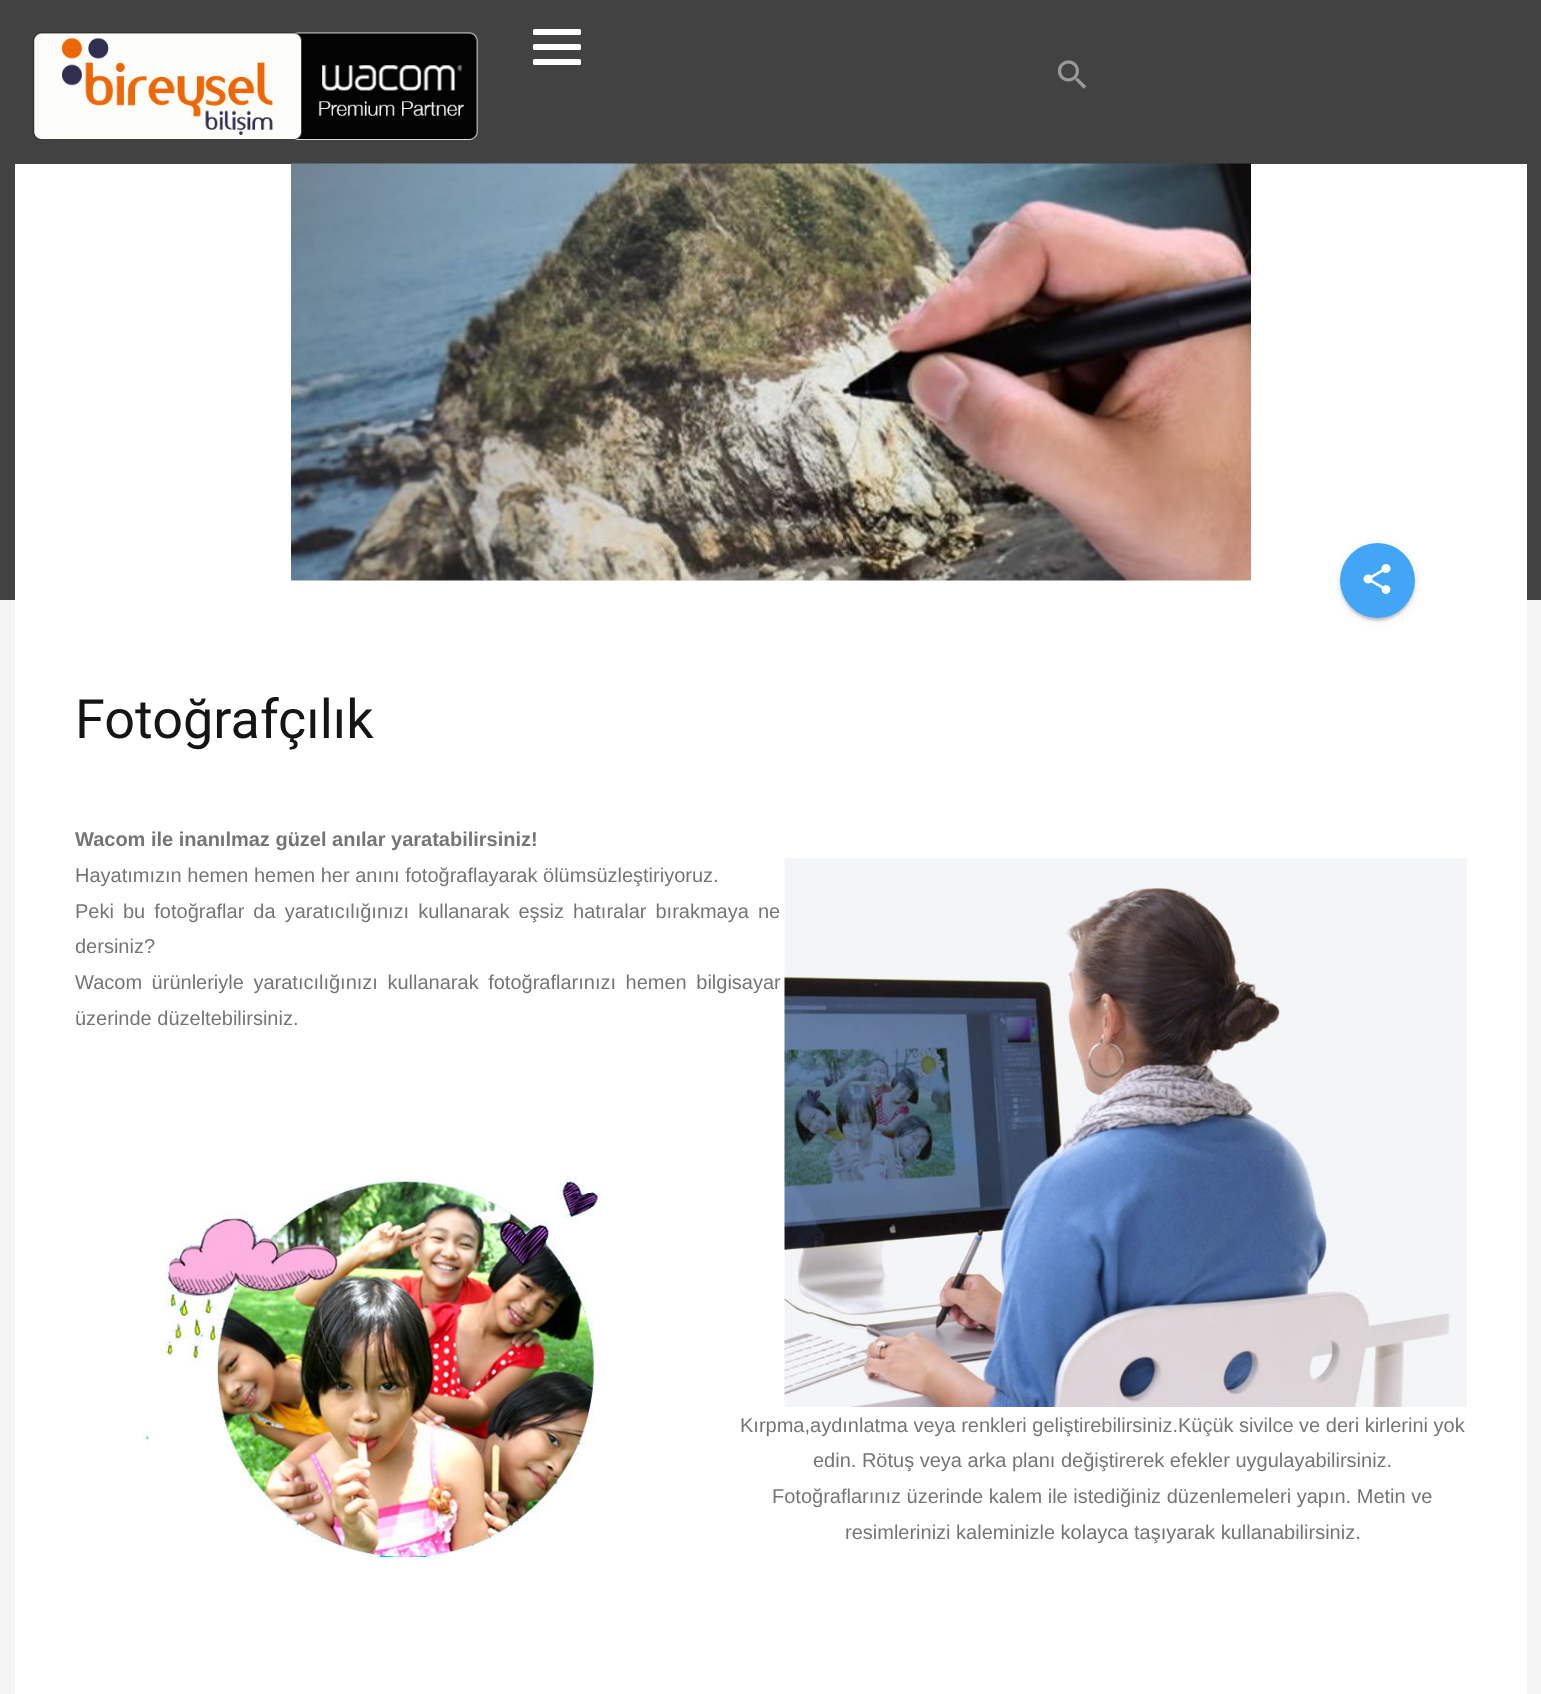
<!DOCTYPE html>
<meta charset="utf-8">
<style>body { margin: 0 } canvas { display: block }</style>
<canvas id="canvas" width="1541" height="1694"></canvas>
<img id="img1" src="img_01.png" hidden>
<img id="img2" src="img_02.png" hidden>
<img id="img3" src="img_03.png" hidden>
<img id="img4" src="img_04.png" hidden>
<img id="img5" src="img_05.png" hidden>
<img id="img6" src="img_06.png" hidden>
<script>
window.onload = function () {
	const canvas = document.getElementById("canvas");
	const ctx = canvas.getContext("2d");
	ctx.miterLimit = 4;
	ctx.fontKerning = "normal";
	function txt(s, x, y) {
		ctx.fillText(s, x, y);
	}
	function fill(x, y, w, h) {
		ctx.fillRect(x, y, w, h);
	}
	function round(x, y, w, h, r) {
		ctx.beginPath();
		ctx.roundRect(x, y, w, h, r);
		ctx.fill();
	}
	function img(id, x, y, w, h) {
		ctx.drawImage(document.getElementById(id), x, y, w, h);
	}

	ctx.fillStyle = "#F5F5F5";
	fill(0, 0, 1541, 1694);
	ctx.fillStyle = "#424242";
	fill(0, 0, 1541, 600);
	img("img1", 33, 32, 445, 108);
	ctx.fillStyle = "#FFFFFF";
	round(533, 44, 48, 6, 1.5);
	round(533, 29, 48, 6, 1.5);
	round(533, 59, 48, 6, 1.5);
	img("img2", 1057, 60, 30, 29);
	fill(15, 164, 1512, 1530);
	img("img3", 291, 163, 960, 418);
	ctx.fillStyle = "rgba(0, 0, 0, 0.1)";
	ctx.filter = "blur(4px)";
	ctx.beginPath();
	ctx.roundRect(1340, 545, 75, 75, 37.5);
	ctx.fill();
	ctx.filter = "none";
	ctx.filter = "blur(1px)";
	ctx.beginPath();
	ctx.roundRect(1343, 551, 69, 69, 34.5);
	ctx.fill();
	ctx.filter = "none";
	ctx.filter = "blur(1px)";
	ctx.beginPath();
	ctx.roundRect(1340, 546, 75, 75, 37.5);
	ctx.fill();
	ctx.filter = "none";
	ctx.fillStyle = "#42A5F5";
	ctx.beginPath();
	ctx.arc(1377.5, 580.5, 37.5, 0, Math.PI * 2);
	ctx.fill();
	img("img4", 1363, 564, 28, 30);
	img("img5", 784, 858, 683, 549);
	img("img6", 143, 1176, 458, 383);
	ctx.font = "54px Roboto";
	ctx.fillStyle = "#151515";
	txt("Fotoğrafçılık", 75, 738);
	ctx.font = "bold 20px Liberation Sans";
	ctx.fillStyle = "#757575";
	txt("Wacom ile inanılmaz güzel anılar yaratabilirsiniz!", 75, 846);
	ctx.font = "20px Liberation Sans";
	txt("Hayatımızın hemen hemen her anını fotoğraflayarak ölümsüzleştiriyoruz.", 75, 882);
	ctx.wordSpacing = "3.5px";
	txt("Peki bu fotoğraflar da yaratıcılığınızı kullanarak eşsiz hatıralar bırakmaya ne", 75, 918);
	ctx.wordSpacing = "0px";
	txt("dersiniz?", 75, 953);
	ctx.wordSpacing = "4px";
	txt("Wacom ürünleriyle yaratıcılığınızı kullanarak fotoğraflarınızı hemen bilgisayar", 75, 989);
	ctx.wordSpacing = "0px";
	txt("üzerinde düzeltebilirsiniz.", 75, 1025);
	txt("Kırpma,aydınlatma veya renkleri geliştirebilirsiniz.Küçük sivilce ve deri kirlerini yok", 740, 1432);
	txt("edin. Rötuş veya arka planı değiştirerek efekler uygulayabilirsiniz.", 813, 1467);
	txt("Fotoğraflarınız üzerinde kalem ile istediğiniz düzenlemeleri yapın. Metin ve", 772, 1503);
	txt("resimlerinizi kaleminizle kolayca taşıyarak kullanabilirsiniz.", 845, 1539);
};
</script>
